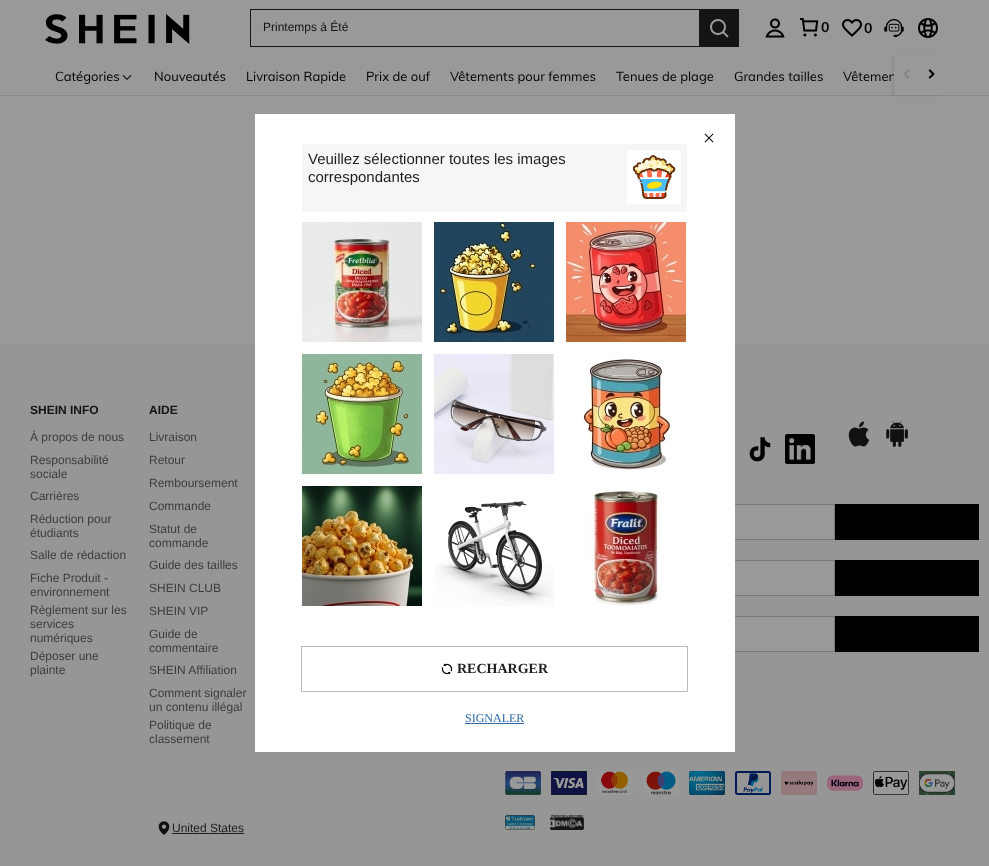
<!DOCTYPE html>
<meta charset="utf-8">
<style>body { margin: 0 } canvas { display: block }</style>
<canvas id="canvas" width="989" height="866"></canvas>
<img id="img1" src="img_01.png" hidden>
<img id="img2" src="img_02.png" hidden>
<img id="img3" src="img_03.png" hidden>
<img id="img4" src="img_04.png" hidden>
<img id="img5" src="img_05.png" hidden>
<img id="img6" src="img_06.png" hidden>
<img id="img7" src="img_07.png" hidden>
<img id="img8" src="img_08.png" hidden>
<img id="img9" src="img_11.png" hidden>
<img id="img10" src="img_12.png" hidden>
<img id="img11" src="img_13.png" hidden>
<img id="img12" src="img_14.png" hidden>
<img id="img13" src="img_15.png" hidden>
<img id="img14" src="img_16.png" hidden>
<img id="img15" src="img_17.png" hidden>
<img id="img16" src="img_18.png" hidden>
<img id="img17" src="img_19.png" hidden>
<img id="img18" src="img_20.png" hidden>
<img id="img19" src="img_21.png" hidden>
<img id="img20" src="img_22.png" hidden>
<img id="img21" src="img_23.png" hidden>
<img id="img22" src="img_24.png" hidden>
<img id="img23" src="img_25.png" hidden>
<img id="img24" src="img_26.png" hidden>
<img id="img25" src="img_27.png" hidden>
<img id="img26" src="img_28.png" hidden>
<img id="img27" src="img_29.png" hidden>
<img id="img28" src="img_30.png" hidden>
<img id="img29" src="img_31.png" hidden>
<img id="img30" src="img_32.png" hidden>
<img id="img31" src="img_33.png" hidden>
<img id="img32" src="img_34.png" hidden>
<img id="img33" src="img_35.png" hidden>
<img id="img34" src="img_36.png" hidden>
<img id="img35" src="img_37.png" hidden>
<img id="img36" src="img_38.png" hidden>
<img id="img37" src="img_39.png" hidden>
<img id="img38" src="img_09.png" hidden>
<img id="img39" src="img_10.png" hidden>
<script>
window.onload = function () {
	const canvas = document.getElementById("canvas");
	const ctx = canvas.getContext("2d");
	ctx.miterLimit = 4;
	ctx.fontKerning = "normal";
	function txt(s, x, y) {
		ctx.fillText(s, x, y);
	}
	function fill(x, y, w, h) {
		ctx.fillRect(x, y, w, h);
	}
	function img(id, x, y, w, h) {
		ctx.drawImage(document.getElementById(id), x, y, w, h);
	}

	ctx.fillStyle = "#999999";
	fill(0, 0, 989, 866);
	ctx.fillStyle = "#898989";
	fill(0, 95, 989, 1);
	ctx.fillStyle = "rgba(0, 0, 0, 0.08)";
	ctx.filter = "blur(1.5px)";
	ctx.beginPath();
	ctx.rect(892, 56, 50, 39);
	ctx.fill();
	ctx.filter = "none";
	ctx.fillStyle = "#999999";
	fill(892, 55, 50, 1);
	img("img1", 45, 14, 145, 30);
	ctx.fillStyle = "#141414";
	fill(250, 9, 449, 1);
	fill(250, 46, 449, 1);
	fill(250, 9, 1, 38);
	fill(699, 9, 40, 38);
	img("img2", 710, 19, 19, 19);
	img("img3", 765, 18, 20, 20);
	img("img4", 800, 18, 19, 19);
	img("img5", 842, 19, 20, 18);
	img("img6", 884, 19, 20, 19);
	img("img7", 918, 18, 20, 20);
	img("img8", 122, 75, 10, 5);
	ctx.fillStyle = "#969696";
	fill(0, 344, 989, 522);
	img("img9", 749, 437, 22, 25);
	img("img10", 785, 434, 30, 30);
	img("img11", 848, 421, 22, 26);
	img("img12", 886, 421, 22, 26);
	ctx.fillStyle = "#999999";
	fill(735, 505, 99, 34);
	ctx.strokeStyle = "#7A7A7A";
	ctx.strokeRect(505.5, 504.5, 329, 35);
	ctx.fillStyle = "#000000";
	fill(835, 504, 144, 36);
	ctx.fillStyle = "#999999";
	fill(735, 561, 99, 34);
	ctx.strokeRect(585.5, 560.5, 249, 35);
	ctx.fillStyle = "#000000";
	fill(835, 560, 144, 36);
	ctx.fillStyle = "#999999";
	fill(735, 617, 99, 34);
	ctx.strokeRect(585.5, 616.5, 249, 35);
	ctx.fillStyle = "#000000";
	fill(835, 616, 144, 36);
	img("img13", 505, 771, 36, 24);
	img("img14", 551, 771, 36, 24);
	img("img15", 597, 771, 36, 24);
	img("img16", 643, 771, 36, 24);
	img("img17", 689, 771, 36, 24);
	img("img18", 735, 771, 36, 24);
	img("img19", 781, 771, 36, 24);
	img("img20", 827, 775, 36, 16);
	img("img21", 873, 771, 36, 24);
	img("img22", 919, 771, 36, 24);
	img("img23", 158, 821, 12, 14);
	ctx.fillStyle = "#1E1E1E";
	fill(172, 833, 72, 1);
	img("img24", 505, 815, 30, 15);
	img("img25", 550, 815, 34, 15);
	ctx.fillStyle = "rgba(0, 0, 0, 0.3)";
	ctx.filter = "blur(0.5px)";
	ctx.beginPath();
	ctx.rect(255, 114, 480, 638);
	ctx.fill();
	ctx.filter = "none";
	ctx.fillStyle = "#FFFFFF";
	fill(255, 114, 480, 638);
	img("img26", 704, 133, 10, 10);
	ctx.fillStyle = "#F6F6F6";
	fill(302, 144, 385, 68);
	ctx.fillStyle = "#FFFFFF";
	fill(627, 150, 54, 54);
	img("img27", 633, 155, 43, 44);
	img("img28", 302, 222, 120, 120);
	img("img29", 434, 222, 120, 120);
	img("img30", 566, 222, 120, 120);
	img("img31", 302, 354, 120, 120);
	img("img32", 434, 354, 120, 120);
	img("img33", 582, 357, 89, 113);
	img("img34", 302, 486, 120, 120);
	img("img35", 434, 501, 120, 105);
	img("img36", 588, 486, 74, 120);
	ctx.strokeStyle = "#BBBBBB";
	ctx.strokeRect(301.5, 646.5, 386, 45);
	img("img37", 441, 663, 12, 12);
	ctx.fillStyle = "#2D68A8";
	fill(465, 723, 59, 1);
	ctx.font = "12px Liberation Sans";
	ctx.fillStyle = "#141414";
	txt("Printemps à Été", 263, 31);
	ctx.font = "bold 14px Muli";
	ctx.fillStyle = "#000000";
	txt("0", 821, 32);
	txt("0", 864, 33);
	ctx.font = "13px Muli";
	txt("Catégories", 55, 81);
	txt("Nouveautés", 154, 81);
	txt("Livraison Rapide", 246, 81);
	txt("Prix de ouf", 366, 81);
	txt("Vêtements pour femmes", 450, 81);
	txt("Tenues de plage", 616, 81);
	txt("Grandes tailles", 734, 81);
	txt("Vêtemen", 843, 81);
	ctx.fillStyle = "#999999";
	fill(894, 56, 49, 39);
	img("img38", 903, 69, 7, 10);
	img("img39", 928, 69, 7, 10);
	ctx.font = "bold 12px Liberation Sans";
	ctx.fillStyle = "#141414";
	txt("SHEIN INFO", 30, 414);
	ctx.font = "12px Liberation Sans";
	ctx.fillStyle = "#3D3D3D";
	txt("À propos de nous", 30, 441);
	txt("Responsabilité", 30, 464);
	txt("sociale", 30, 478);
	txt("Carrières", 30, 500);
	txt("Réduction pour", 30, 523);
	txt("étudiants", 30, 537);
	txt("Salle de rédaction", 30, 559);
	txt("Fiche Produit -", 30, 582);
	txt("environnement", 30, 596);
	txt("Règlement sur les", 30, 614);
	txt("services", 30, 628);
	txt("numériques", 30, 642);
	txt("Déposer une", 30, 660);
	txt("plainte", 30, 674);
	ctx.font = "bold 12px Liberation Sans";
	ctx.fillStyle = "#141414";
	txt("AIDE", 149, 414);
	ctx.font = "12px Liberation Sans";
	ctx.fillStyle = "#3D3D3D";
	txt("Livraison", 149, 441);
	txt("Retour", 149, 464);
	txt("Remboursement", 149, 487);
	txt("Commande", 149, 510);
	txt("Statut de", 149, 533);
	txt("commande", 149, 547);
	txt("Guide des tailles", 149, 569);
	txt("SHEIN CLUB", 149, 592);
	txt("SHEIN VIP", 149, 615);
	txt("Guide de", 149, 638);
	txt("commentaire", 149, 652);
	txt("SHEIN Affiliation", 149, 674);
	txt("Comment signaler", 149, 697);
	txt("un contenu illégal", 149, 711);
	txt("Politique de", 149, 729);
	txt("classement", 149, 743);
	ctx.fillStyle = "#1E1E1E";
	txt("United States", 172, 832);
	ctx.font = "15px Liberation Sans";
	txt("Veuillez sélectionner toutes les images", 308, 164);
	txt("correspondantes", 308, 182);
	ctx.font = "bold 14px Liberation Serif";
	txt("RECHARGER", 457, 673);
	ctx.font = "12px Liberation Serif";
	ctx.fillStyle = "#2D68A8";
	txt("SIGNALER", 465, 722);
};
</script>
